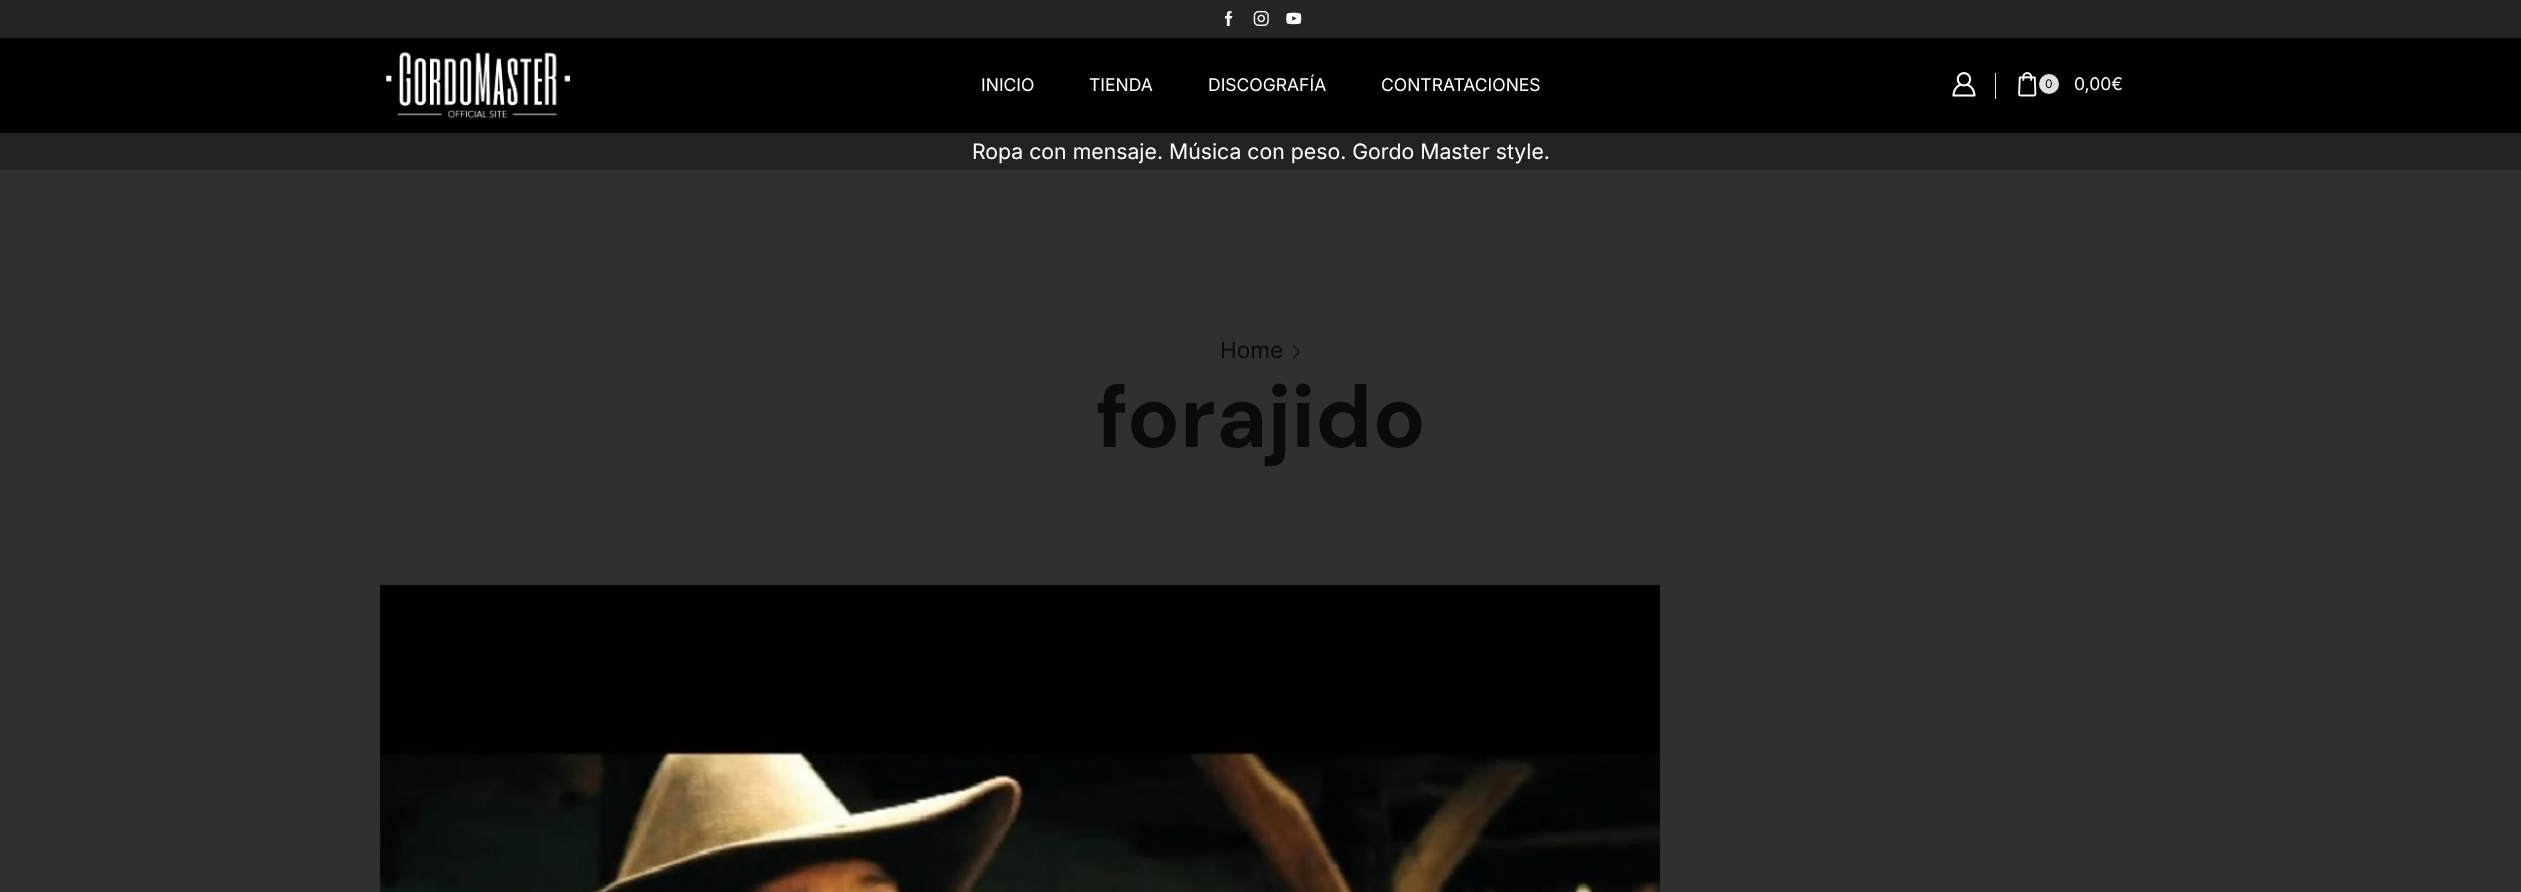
<!DOCTYPE html>
<meta charset="utf-8">
<style>body { margin: 0 } canvas { display: block }</style>
<canvas id="canvas" width="2521" height="892"></canvas>
<img id="img1" src="img_01.png" hidden>
<img id="img2" src="img_02.png" hidden>
<img id="img3" src="img_03.png" hidden>
<img id="img4" src="img_04.png" hidden>
<img id="img5" src="img_05.png" hidden>
<img id="img6" src="img_06.png" hidden>
<img id="img7" src="img_07.png" hidden>
<img id="img8" src="img_08.png" hidden>
<script>
window.onload = function () {
	const canvas = document.getElementById("canvas");
	const ctx = canvas.getContext("2d");
	ctx.miterLimit = 4;
	ctx.fontKerning = "normal";
	function txt(s, x, y) {
		ctx.fillText(s, x, y);
	}
	function fill(x, y, w, h) {
		ctx.fillRect(x, y, w, h);
	}
	function img(id, x, y, w, h) {
		ctx.drawImage(document.getElementById(id), x, y, w, h);
	}

	ctx.fillStyle = "#303030";
	fill(0, 0, 2521, 892);
	ctx.fillStyle = "#242424";
	fill(0, 0, 2521, 38);
	img("img1", 1225, 10, 8, 16);
	img("img2", 1253, 10, 16, 16);
	img("img3", 1286, 12, 16, 13);
	ctx.fillStyle = "#000000";
	fill(0, 38, 2521, 95);
	img("img4", 386, 52, 184, 66);
	ctx.fillStyle = "#E1E1E1";
	fill(1995, 73, 1, 26);
	img("img5", 1952, 72, 24, 25);
	img("img6", 2018, 72, 19, 25);
	ctx.beginPath();
	ctx.arc(2049, 84, 10, 0, Math.PI * 2);
	ctx.fill();
	ctx.fillStyle = "#222222";
	fill(0, 133, 2521, 37);
	img("img7", 1293, 345, 7, 14);
	img("img8", 380, 585, 1280, 307);
	ctx.font = "17.5px Inter";
	ctx.fillStyle = "#FFFFFF";
	txt("INICIO", 981, 91);
	txt("TIENDA", 1089, 91);
	txt("DISCOGRAFÍA", 1208, 91);
	txt("CONTRATACIONES", 1381, 91);
	ctx.font = "12px Inter";
	ctx.fillStyle = "#000000";
	txt("0", 2045, 88);
	ctx.font = "17.5px Inter";
	ctx.fillStyle = "#FFFFFF";
	txt("0,00€", 2074, 90);
	ctx.font = "21.25px Inter";
	txt("Ropa con mensaje. Música con peso. Gordo Master style.", 972, 159);
	ctx.font = "22.5px Inter";
	ctx.fillStyle = "#0A0A0A";
	txt("Home", 1220, 358);
	ctx.font = "bold 87.5px DM Sans";
	txt("forajido", 1096, 447);
};
</script>
